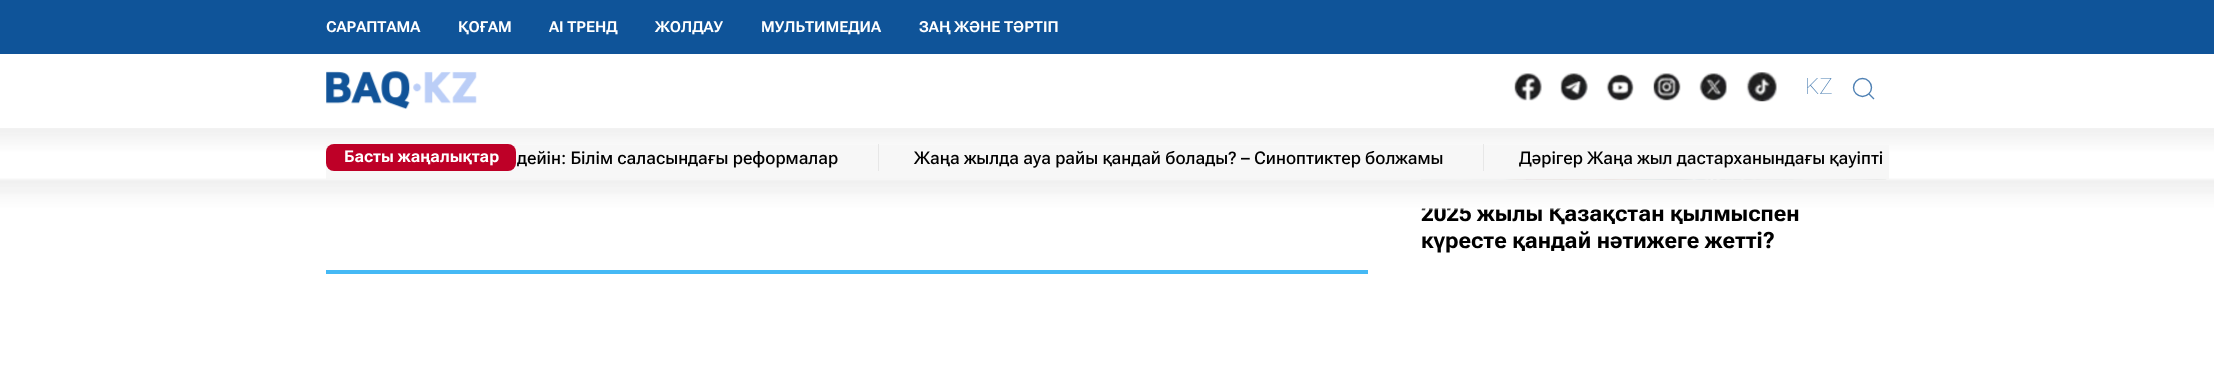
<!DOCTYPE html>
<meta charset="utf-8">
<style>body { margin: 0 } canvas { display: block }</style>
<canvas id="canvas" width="2214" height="365"></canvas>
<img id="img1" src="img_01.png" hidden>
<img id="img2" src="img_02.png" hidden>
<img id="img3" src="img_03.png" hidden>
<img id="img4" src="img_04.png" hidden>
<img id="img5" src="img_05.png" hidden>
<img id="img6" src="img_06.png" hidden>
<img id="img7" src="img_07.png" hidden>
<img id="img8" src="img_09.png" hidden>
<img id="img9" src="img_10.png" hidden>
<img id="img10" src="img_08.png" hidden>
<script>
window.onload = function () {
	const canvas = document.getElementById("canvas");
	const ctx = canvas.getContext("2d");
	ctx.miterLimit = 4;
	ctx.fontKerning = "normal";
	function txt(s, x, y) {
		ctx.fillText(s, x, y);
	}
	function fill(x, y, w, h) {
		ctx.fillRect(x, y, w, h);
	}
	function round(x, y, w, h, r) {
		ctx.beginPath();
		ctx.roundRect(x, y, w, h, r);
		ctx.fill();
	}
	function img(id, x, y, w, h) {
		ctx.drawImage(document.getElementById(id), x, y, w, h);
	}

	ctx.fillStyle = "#FFFFFF";
	fill(0, 0, 2214, 365);
	ctx.fillStyle = "#0F5499";
	fill(0, 0, 2214, 54);
	img("img1", 326, 71, 151, 38);
	img("img2", 1514, 73, 28, 28);
	img("img3", 1560, 73, 28, 28);
	img("img4", 1606, 74, 28, 27);
	img("img5", 1653, 73, 28, 28);
	img("img6", 1699, 73, 28, 28);
	img("img7", 1746, 72, 31, 30);
	ctx.beginPath();
	ctx.arc(1862.5, 87.5, 9, 0, Math.PI * 2);
	ctx.strokeStyle = "#4F81B4";
	ctx.lineWidth = 1.4;
	ctx.stroke();
	ctx.beginPath();
	ctx.moveTo(1869, 94);
	ctx.lineTo(1874, 99);
	ctx.closePath();
	ctx.stroke();
	img("img8", 0, 128, 2214, 33);
	ctx.fillStyle = "#F7F7F7";
	fill(326, 145, 1563, 34);
	ctx.fillStyle = "#BE0027";
	round(326, 144, 190, 27, 8);
	ctx.fillStyle = "#E7E7E7";
	fill(878, 144, 1, 27);
	fill(1483, 144, 1, 27);
	img("img9", 1421, 179, 466, 1);
	ctx.fillStyle = "#45B9F5";
	fill(326, 270, 1042, 4);
	ctx.font = "italic bold 15px 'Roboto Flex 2'";
	ctx.fillStyle = "#FFFFFF";
	txt("САРАПТАМА", 326, 32);
	txt("ҚОҒАМ", 458, 32);
	txt("AI ТРЕНД", 549, 32);
	txt("ЖОЛДАУ", 655, 32);
	txt("МУЛЬТИМЕДИА", 761, 32);
	txt("ЗАҢ ЖӘНЕ ТӘРТІП", 919, 32);
	ctx.font = "100 22.5px Roboto";
	ctx.fillStyle = "#4F81B4";
	txt("KZ", 1805, 94);
	ctx.font = "italic bold 16.25px 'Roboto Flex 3'";
	ctx.fillStyle = "#FFFFFF";
	txt("Басты жаңалықтар", 344, 162);
	ctx.font = "italic 500 17.5px Roboto Flex";
	ctx.fillStyle = "#000000";
	txt("дейін: Білім саласындағы реформалар", 517, 164);
	txt("Жаңа жылда ауа райы қандай болады? – Синоптиктер болжамы", 914, 164);
	txt("Дәрігер Жаңа жыл дастарханындағы қауіпті", 1519, 164);
	ctx.font = "italic bold 22.5px Roboto Flex";
	txt("2025 жылы Қазақстан қылмыспен", 1421, 221);
	img("img10", 0, 178, 2214, 32);
	txt("күресте қандай нәтижеге жетті?", 1421, 248);
};
</script>
